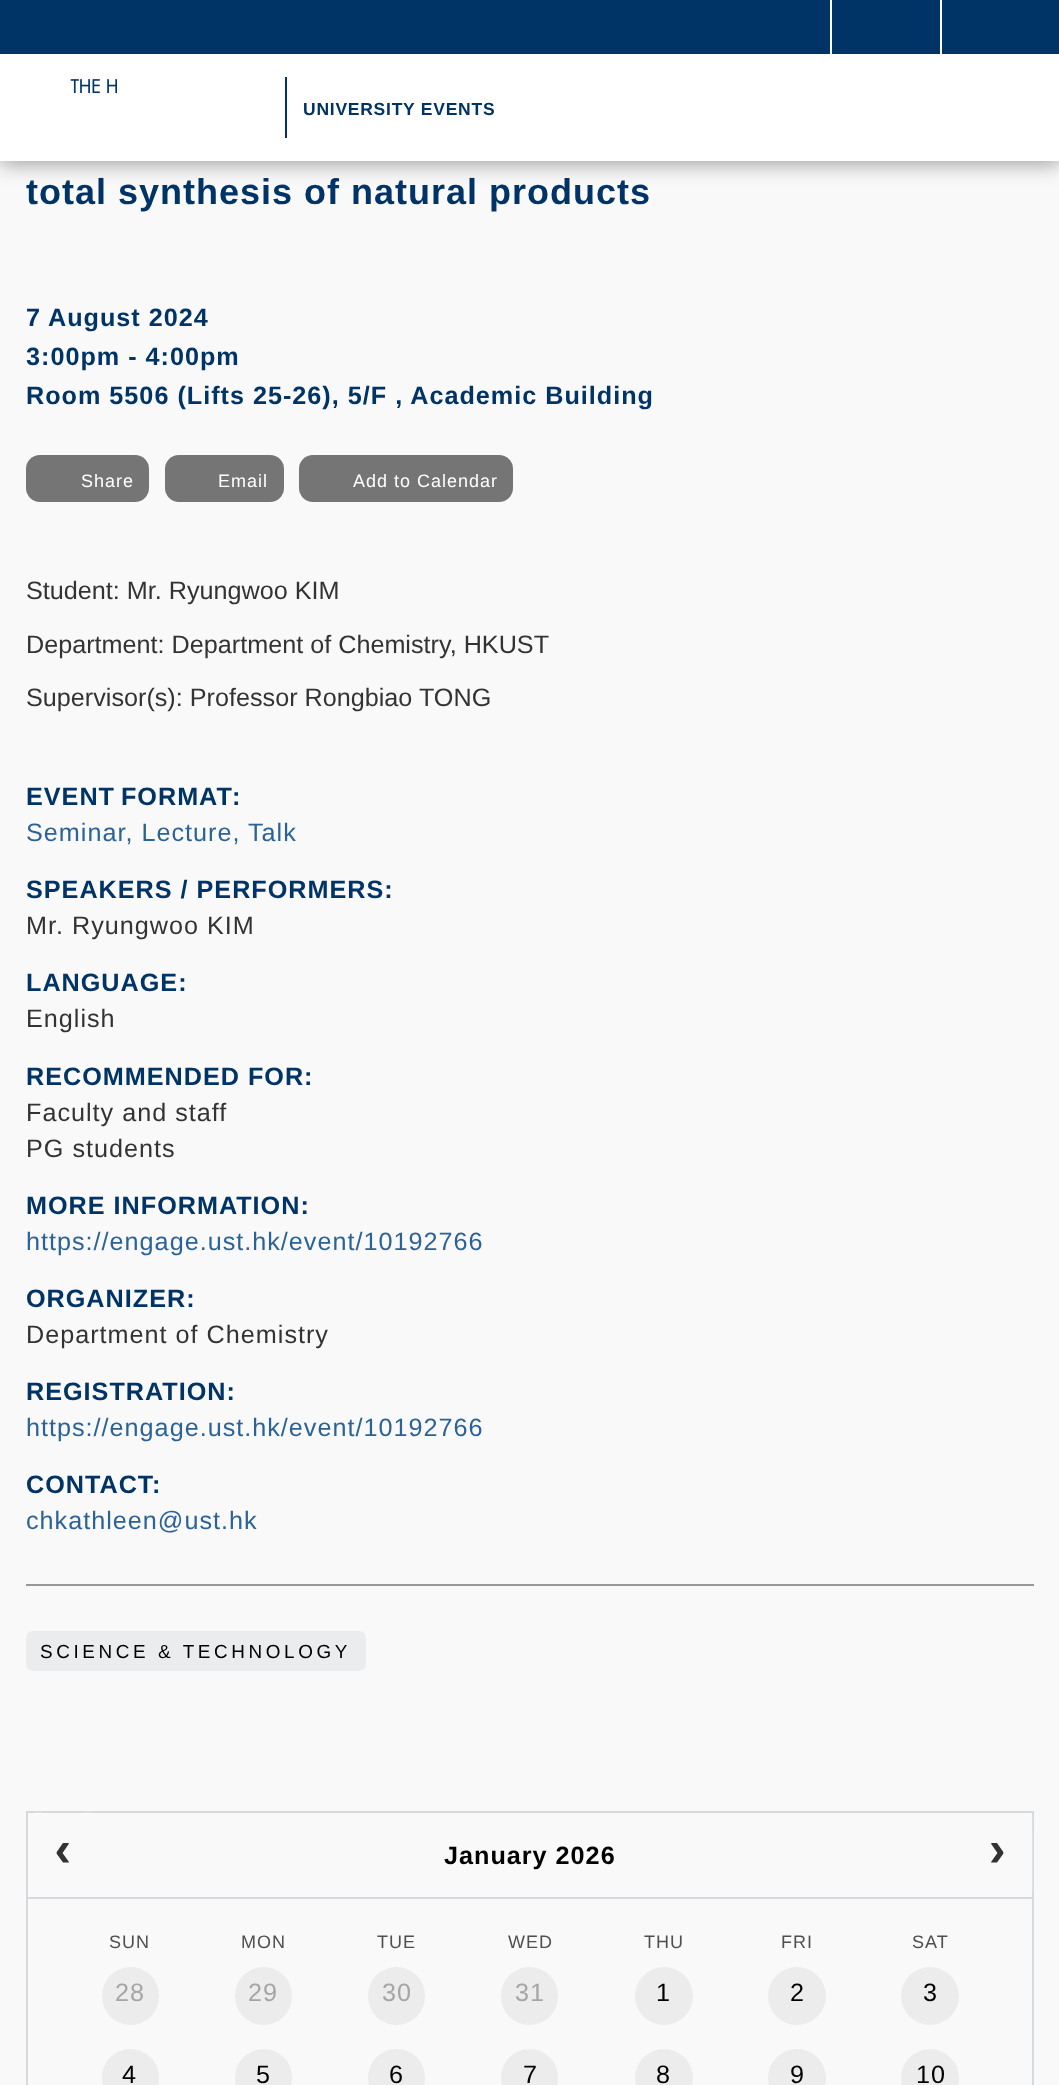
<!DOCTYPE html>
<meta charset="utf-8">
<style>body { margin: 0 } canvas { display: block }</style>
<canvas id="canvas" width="1059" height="2085"></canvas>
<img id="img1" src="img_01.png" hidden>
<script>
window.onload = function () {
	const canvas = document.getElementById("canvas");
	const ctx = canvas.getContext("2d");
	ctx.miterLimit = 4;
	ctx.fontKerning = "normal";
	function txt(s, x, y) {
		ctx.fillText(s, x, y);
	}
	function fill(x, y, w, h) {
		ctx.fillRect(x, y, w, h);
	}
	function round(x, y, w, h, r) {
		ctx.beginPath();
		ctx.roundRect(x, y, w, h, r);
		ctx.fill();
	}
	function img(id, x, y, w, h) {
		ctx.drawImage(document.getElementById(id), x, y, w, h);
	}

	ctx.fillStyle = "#F9F9F9";
	fill(0, 0, 1059, 2085);
	ctx.fillStyle = "rgba(0, 0, 0, 0.4)";
	ctx.filter = "blur(10.5px)";
	ctx.beginPath();
	ctx.rect(0, 0, 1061, 163);
	ctx.fill();
	ctx.filter = "none";
	ctx.fillStyle = "#003366";
	fill(0, 0, 1059, 54);
	ctx.fillStyle = "#FFFFFF";
	fill(940, 0, 2, 54);
	fill(830, 0, 2, 54);
	fill(0, 54, 1059, 107);
	img("img1", 70, 79, 47, 15);
	ctx.fillStyle = "#003366";
	fill(285, 77, 2, 61);
	ctx.fillStyle = "#757575";
	round(26, 455, 123, 47, 14);
	round(165, 455, 119, 47, 14);
	round(299, 455, 214, 47, 14);
	ctx.fillStyle = "#979797";
	fill(26, 1584, 1008, 2);
	ctx.fillStyle = "#EAECEE";
	round(26, 1631, 340, 40, 7);
	ctx.strokeStyle = "#D6D9DD";
	ctx.lineWidth = 2;
	ctx.strokeRect(27, 1812, 1006, 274);
	ctx.fillStyle = "#FAFAFA";
	ctx.beginPath();
	ctx.moveTo(35, 1815);
	ctx.lineTo(91, 1815);
	ctx.bezierCurveTo(95, 1815, 98, 1818, 98, 1822);
	ctx.bezierCurveTo(98, 1811, 90, 1813, 82, 1813);
	ctx.lineTo(44, 1813);
	ctx.bezierCurveTo(36, 1813, 28, 1811, 28, 1822);
	ctx.bezierCurveTo(28, 1818, 31, 1815, 35, 1815);
	ctx.closePath();
	ctx.fill();
	ctx.fillStyle = "rgba(255, 255, 255, 0.2)";
	ctx.beginPath();
	ctx.moveTo(970, 1815);
	ctx.lineTo(1027, 1815);
	ctx.bezierCurveTo(1034, 1817, 1032, 1830, 1032, 1834);
	ctx.lineTo(1032, 1894);
	ctx.bezierCurveTo(1033, 1893, 1033, 1891, 1033, 1890);
	ctx.lineTo(1033, 1820);
	ctx.bezierCurveTo(1033, 1816, 1030, 1813, 1026, 1813);
	ctx.lineTo(970, 1813);
	ctx.bezierCurveTo(967, 1813, 964, 1815, 963, 1818);
	ctx.bezierCurveTo(965, 1816, 967, 1815, 970, 1815);
	ctx.closePath();
	ctx.fill();
	ctx.fillStyle = "#D6D9DD";
	fill(28, 1897, 1005, 2);
	ctx.fillStyle = "#ECECEC";
	round(102, 1967, 57, 58, 28.5);
	round(235, 1967, 57, 58, 28.5);
	round(368, 1967, 57, 58, 28.5);
	round(501, 1967, 57, 58, 28.5);
	ctx.beginPath();
	ctx.arc(664, 1996, 29, 0, Math.PI * 2);
	ctx.fill();
	ctx.beginPath();
	ctx.arc(797, 1996, 29, 0, Math.PI * 2);
	ctx.fill();
	ctx.beginPath();
	ctx.arc(930, 1996, 29, 0, Math.PI * 2);
	ctx.fill();
	round(102, 2049, 57, 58, 28.5);
	round(235, 2049, 57, 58, 28.5);
	round(368, 2049, 57, 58, 28.5);
	round(501, 2049, 57, 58, 28.5);
	ctx.beginPath();
	ctx.arc(664, 2078, 29, 0, Math.PI * 2);
	ctx.fill();
	ctx.beginPath();
	ctx.arc(797, 2078, 29, 0, Math.PI * 2);
	ctx.fill();
	ctx.beginPath();
	ctx.arc(930, 2078, 29, 0, Math.PI * 2);
	ctx.fill();
	ctx.letterSpacing = "0.75px";
	ctx.font = "bold 17.5px Liberation Sans";
	ctx.fillStyle = "#003366";
	txt("UNIVERSITY EVENTS", 303, 115);
	ctx.letterSpacing = "1px";
	ctx.font = "bold 36px Liberation Sans";
	txt("total synthesis of natural products", 26, 204);
	ctx.font = "bold 25.2px Liberation Sans";
	txt("7", 26, 326);
	txt("August 2024", 48, 326);
	txt("3:00pm - 4:00pm", 26, 365);
	txt("Room 5506 (Lifts 25-26), 5/F , Academic Building", 26, 404);
	ctx.font = "18px Liberation Sans";
	ctx.fillStyle = "#FFFFFF";
	txt("Share", 81, 487);
	txt("Email", 218, 487);
	txt("Add to Calendar", 353, 487);
	ctx.letterSpacing = "0px";
	ctx.font = "25.2px Liberation Sans";
	ctx.fillStyle = "#333333";
	txt("Student: Mr. Ryungwoo KIM", 26, 599);
	txt("Department: Department of Chemistry, HKUST", 26, 653);
	txt("Supervisor(s): Professor Rongbiao TONG", 26, 706);
	ctx.letterSpacing = "1px";
	ctx.wordSpacing = "-2px";
	ctx.font = "bold 25.2px Liberation Sans";
	ctx.fillStyle = "#003366";
	txt("EVENT FORMAT", 26, 805);
	ctx.wordSpacing = "0px";
	txt(":", 232, 805);
	ctx.font = "25.2px Liberation Sans";
	ctx.fillStyle = "#2B6297";
	txt("Seminar, Lecture, Talk", 26, 841);
	ctx.font = "bold 25.2px Liberation Sans";
	ctx.fillStyle = "#003366";
	txt("SPEAKERS / PERFORMERS:", 26, 898);
	ctx.font = "25.2px Liberation Sans";
	ctx.fillStyle = "#333333";
	txt("Mr. Ryungwoo KIM", 26, 934);
	ctx.font = "bold 25.2px Liberation Sans";
	ctx.fillStyle = "#003366";
	txt("LANGUAGE:", 26, 991);
	ctx.font = "25.2px Liberation Sans";
	ctx.fillStyle = "#333333";
	txt("English", 26, 1027);
	ctx.font = "bold 25.2px Liberation Sans";
	ctx.fillStyle = "#003366";
	txt("RECOMMENDED FOR:", 26, 1085);
	ctx.font = "25.2px Liberation Sans";
	ctx.fillStyle = "#333333";
	txt("Faculty and staff", 26, 1121);
	txt("PG students", 26, 1157);
	ctx.font = "bold 25.2px Liberation Sans";
	ctx.fillStyle = "#003366";
	txt("MORE INFORMATION:", 26, 1214);
	ctx.font = "25.2px Liberation Sans";
	ctx.fillStyle = "#2B6297";
	txt("https://engage.ust.hk/event/10192766", 26, 1250);
	ctx.font = "bold 25.2px Liberation Sans";
	ctx.fillStyle = "#003366";
	txt("ORGANIZER:", 26, 1307);
	ctx.font = "25.2px Liberation Sans";
	ctx.fillStyle = "#333333";
	txt("Department of Chemistry", 26, 1343);
	ctx.font = "bold 25.2px Liberation Sans";
	ctx.fillStyle = "#003366";
	txt("REGISTRATION:", 26, 1400);
	ctx.font = "25.2px Liberation Sans";
	ctx.fillStyle = "#2B6297";
	txt("https://engage.ust.hk/event/10192766", 26, 1436);
	ctx.font = "bold 25.2px Liberation Sans";
	ctx.fillStyle = "#003366";
	txt("CONTACT", 26, 1493);
	txt(":", 152, 1493);
	ctx.font = "25.2px Liberation Sans";
	ctx.fillStyle = "#2B6297";
	txt("chkathleen@ust.hk", 26, 1529);
	ctx.letterSpacing = "3.6px";
	ctx.font = "18.9px Liberation Sans";
	ctx.fillStyle = "#000000";
	txt("SCIENCE & TECHNOLOGY", 40, 1658);
	ctx.save();
	ctx.beginPath();
	ctx.rect(49, 1843, 30, 26);
	ctx.clip();
	ctx.letterSpacing = "0px";
	ctx.font = "bold 50px Liberation Mono";
	ctx.fillStyle = "#333333";
	txt("‹", 48, 1866);
	ctx.restore();
	ctx.letterSpacing = "1px";
	ctx.font = "bold 25.2px Liberation Sans";
	txt("January 2026", 444, 1864);
	ctx.save();
	ctx.beginPath();
	ctx.rect(982, 1843, 31, 26);
	ctx.clip();
	ctx.letterSpacing = "0px";
	ctx.font = "bold 50px Liberation Mono";
	ctx.fillStyle = "#333333";
	txt("›", 982, 1866);
	ctx.restore();
	ctx.font = "18px Liberation Sans";
	ctx.fillStyle = "#4F4F4F";
	txt("SUN", 109, 1948);
	txt("MON", 241, 1948);
	txt("TUE", 377, 1948);
	txt("WED", 508, 1948);
	txt("THU", 644, 1948);
	txt("FRI", 781, 1948);
	txt("SAT", 912, 1948);
	ctx.font = "25.2px Liberation Sans";
	ctx.fillStyle = "#A5A5A5";
	txt("28", 115, 2001);
	txt("29", 248, 2001);
	txt("30", 382, 2001);
	txt("31", 515, 2001);
	ctx.fillStyle = "#000000";
	txt("1", 656, 2001);
	txt("2", 790, 2001);
	txt("3", 923, 2001);
	txt("4", 122, 2083);
	txt("5", 256, 2083);
	txt("6", 389, 2083);
	txt("7", 523, 2083);
	txt("8", 656, 2083);
	txt("9", 790, 2083);
	txt("10", 916, 2083);
};
</script>
